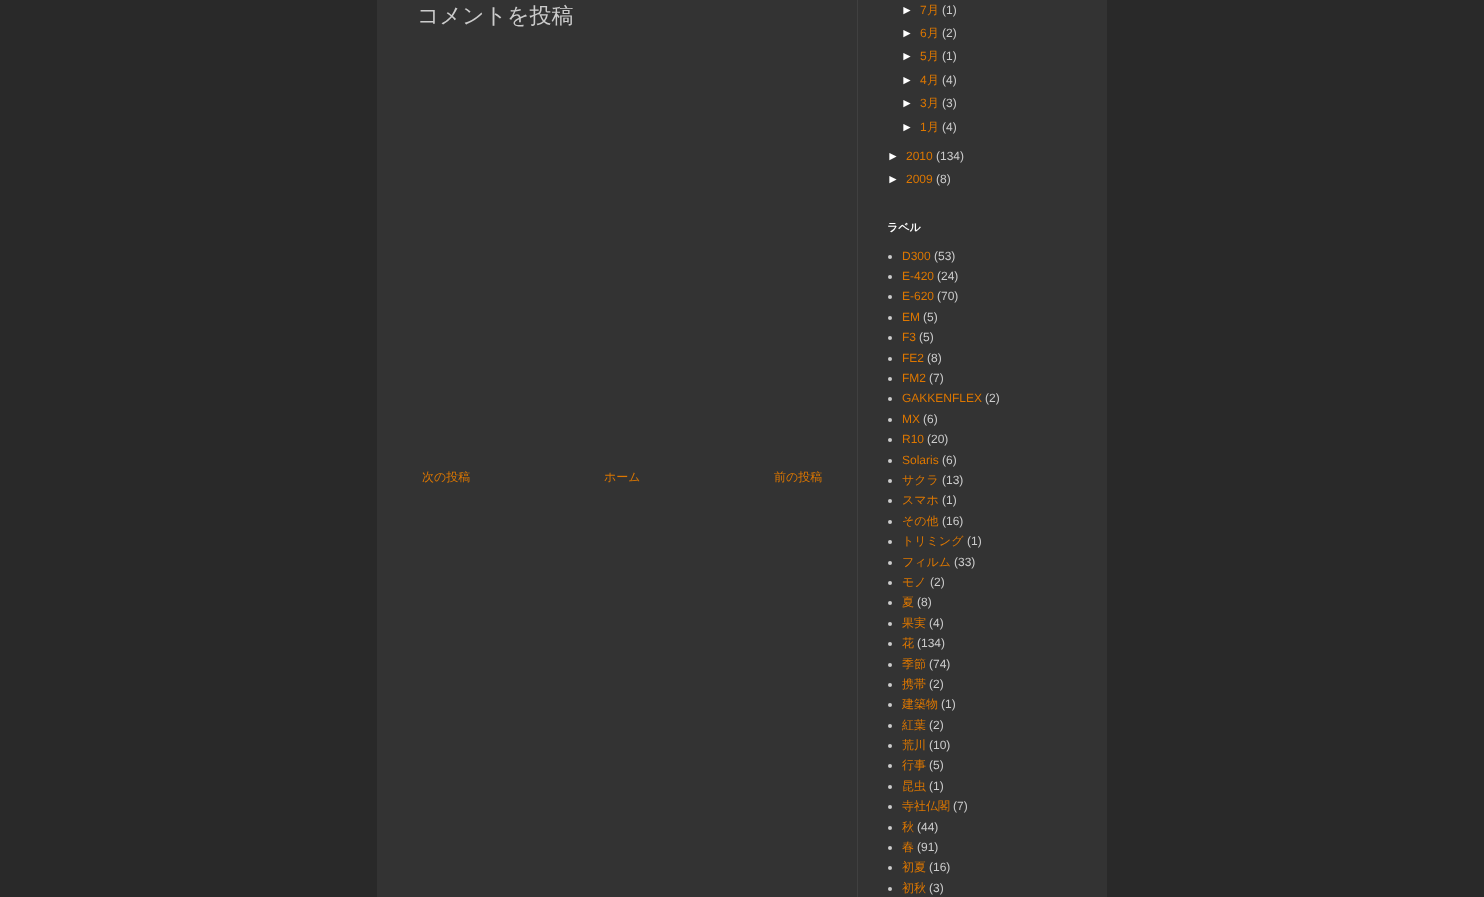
<!DOCTYPE html>
<meta charset="utf-8">
<style>body { margin: 0 } canvas { display: block }</style>
<canvas id="canvas" width="1484" height="897"></canvas>
<script>
window.onload = function () {
	const canvas = document.getElementById("canvas");
	const ctx = canvas.getContext("2d");
	ctx.miterLimit = 4;
	ctx.fontKerning = "normal";
	function txt(s, x, y) {
		ctx.fillText(s, x, y);
	}
	function fill(x, y, w, h) {
		ctx.fillRect(x, y, w, h);
	}

	ctx.fillStyle = "#292929";
	fill(0, 0, 1484, 897);
	ctx.fillStyle = "#333333";
	fill(377, 0, 730, 897);
	ctx.fillStyle = "#404040";
	fill(857, 0, 1, 897);
	ctx.fillStyle = "#CCCCCC";
	ctx.beginPath();
	ctx.arc(890, 257, 2, 0, Math.PI * 2);
	ctx.fill();
	ctx.beginPath();
	ctx.arc(890, 277, 2, 0, Math.PI * 2);
	ctx.fill();
	ctx.beginPath();
	ctx.arc(890, 297, 2, 0, Math.PI * 2);
	ctx.fill();
	ctx.beginPath();
	ctx.arc(890, 318, 2, 0, Math.PI * 2);
	ctx.fill();
	ctx.beginPath();
	ctx.arc(890, 338, 2, 0, Math.PI * 2);
	ctx.fill();
	ctx.beginPath();
	ctx.arc(890, 359, 2, 0, Math.PI * 2);
	ctx.fill();
	ctx.beginPath();
	ctx.arc(890, 379, 2, 0, Math.PI * 2);
	ctx.fill();
	ctx.beginPath();
	ctx.arc(890, 399, 2, 0, Math.PI * 2);
	ctx.fill();
	ctx.beginPath();
	ctx.arc(890, 420, 2, 0, Math.PI * 2);
	ctx.fill();
	ctx.beginPath();
	ctx.arc(890, 440, 2, 0, Math.PI * 2);
	ctx.fill();
	ctx.beginPath();
	ctx.arc(890, 461, 2, 0, Math.PI * 2);
	ctx.fill();
	ctx.beginPath();
	ctx.arc(890, 481, 2, 0, Math.PI * 2);
	ctx.fill();
	ctx.beginPath();
	ctx.arc(890, 501, 2, 0, Math.PI * 2);
	ctx.fill();
	ctx.beginPath();
	ctx.arc(890, 522, 2, 0, Math.PI * 2);
	ctx.fill();
	ctx.beginPath();
	ctx.arc(890, 542, 2, 0, Math.PI * 2);
	ctx.fill();
	ctx.beginPath();
	ctx.arc(890, 563, 2, 0, Math.PI * 2);
	ctx.fill();
	ctx.beginPath();
	ctx.arc(890, 583, 2, 0, Math.PI * 2);
	ctx.fill();
	ctx.beginPath();
	ctx.arc(890, 603, 2, 0, Math.PI * 2);
	ctx.fill();
	ctx.beginPath();
	ctx.arc(890, 624, 2, 0, Math.PI * 2);
	ctx.fill();
	ctx.beginPath();
	ctx.arc(890, 644, 2, 0, Math.PI * 2);
	ctx.fill();
	ctx.beginPath();
	ctx.arc(890, 665, 2, 0, Math.PI * 2);
	ctx.fill();
	ctx.beginPath();
	ctx.arc(890, 685, 2, 0, Math.PI * 2);
	ctx.fill();
	ctx.beginPath();
	ctx.arc(890, 705, 2, 0, Math.PI * 2);
	ctx.fill();
	ctx.beginPath();
	ctx.arc(890, 726, 2, 0, Math.PI * 2);
	ctx.fill();
	ctx.beginPath();
	ctx.arc(890, 746, 2, 0, Math.PI * 2);
	ctx.fill();
	ctx.beginPath();
	ctx.arc(890, 766, 2, 0, Math.PI * 2);
	ctx.fill();
	ctx.beginPath();
	ctx.arc(890, 787, 2, 0, Math.PI * 2);
	ctx.fill();
	ctx.beginPath();
	ctx.arc(890, 807, 2, 0, Math.PI * 2);
	ctx.fill();
	ctx.beginPath();
	ctx.arc(890, 828, 2, 0, Math.PI * 2);
	ctx.fill();
	ctx.beginPath();
	ctx.arc(890, 848, 2, 0, Math.PI * 2);
	ctx.fill();
	ctx.beginPath();
	ctx.arc(890, 868, 2, 0, Math.PI * 2);
	ctx.fill();
	ctx.beginPath();
	ctx.arc(890, 889, 2, 0, Math.PI * 2);
	ctx.fill();
	ctx.font = "500 22px WenQuanYi Zen Hei";
	txt("コメントを投稿", 417, 23);
	ctx.font = "500 12px WenQuanYi Zen Hei";
	ctx.fillStyle = "#DD7700";
	txt("次の投稿", 422, 481);
	txt("ホーム", 604, 481);
	txt("前の投稿", 774, 481);
	ctx.font = "12px Liberation Sans";
	ctx.fillStyle = "#FFFFFF";
	txt("►", 901, 14);
	ctx.fillStyle = "#DD7700";
	txt("7", 920, 14);
	ctx.font = "500 12px WenQuanYi Zen Hei";
	txt("月", 927, 14);
	ctx.font = "12px Liberation Sans";
	ctx.fillStyle = "#CCCCCC";
	txt("(1)", 942, 14);
	ctx.fillStyle = "#FFFFFF";
	txt("►", 901, 37);
	ctx.fillStyle = "#DD7700";
	txt("6", 920, 37);
	ctx.font = "500 12px WenQuanYi Zen Hei";
	txt("月", 927, 37);
	ctx.font = "12px Liberation Sans";
	ctx.fillStyle = "#CCCCCC";
	txt("(2)", 942, 37);
	ctx.fillStyle = "#FFFFFF";
	txt("►", 901, 60);
	ctx.fillStyle = "#DD7700";
	txt("5", 920, 60);
	ctx.font = "500 12px WenQuanYi Zen Hei";
	txt("月", 927, 60);
	ctx.font = "12px Liberation Sans";
	ctx.fillStyle = "#CCCCCC";
	txt("(1)", 942, 60);
	ctx.fillStyle = "#FFFFFF";
	txt("►", 901, 84);
	ctx.fillStyle = "#DD7700";
	txt("4", 920, 84);
	ctx.font = "500 12px WenQuanYi Zen Hei";
	txt("月", 927, 84);
	ctx.font = "12px Liberation Sans";
	ctx.fillStyle = "#CCCCCC";
	txt("(4)", 942, 84);
	ctx.fillStyle = "#FFFFFF";
	txt("►", 901, 107);
	ctx.fillStyle = "#DD7700";
	txt("3", 920, 107);
	ctx.font = "500 12px WenQuanYi Zen Hei";
	txt("月", 927, 107);
	ctx.font = "12px Liberation Sans";
	ctx.fillStyle = "#CCCCCC";
	txt("(3)", 942, 107);
	ctx.fillStyle = "#FFFFFF";
	txt("►", 901, 131);
	ctx.fillStyle = "#DD7700";
	txt("1", 920, 131);
	ctx.font = "500 12px WenQuanYi Zen Hei";
	txt("月", 927, 131);
	ctx.font = "12px Liberation Sans";
	ctx.fillStyle = "#CCCCCC";
	txt("(4)", 942, 131);
	ctx.fillStyle = "#FFFFFF";
	txt("►", 887, 160);
	ctx.fillStyle = "#DD7700";
	txt("2010", 906, 160);
	ctx.fillStyle = "#CCCCCC";
	txt("(134)", 936, 160);
	ctx.fillStyle = "#FFFFFF";
	txt("►", 887, 183);
	ctx.fillStyle = "#DD7700";
	txt("2009", 906, 183);
	ctx.fillStyle = "#CCCCCC";
	txt("(8)", 936, 183);
	ctx.font = "bold 11px WenQuanYi Zen Hei";
	ctx.fillStyle = "#FFFFFF";
	txt("ラベル", 887, 231);
	ctx.font = "12px Liberation Sans";
	ctx.fillStyle = "#DD7700";
	txt("D300", 902, 260);
	ctx.fillStyle = "#CCCCCC";
	txt("(53)", 934, 260);
	ctx.fillStyle = "#DD7700";
	txt("E-420", 902, 280);
	ctx.fillStyle = "#CCCCCC";
	txt("(24)", 937, 280);
	ctx.fillStyle = "#DD7700";
	txt("E-620", 902, 300);
	ctx.fillStyle = "#CCCCCC";
	txt("(70)", 937, 300);
	ctx.fillStyle = "#DD7700";
	txt("EM", 902, 321);
	ctx.fillStyle = "#CCCCCC";
	txt("(5)", 923, 321);
	ctx.fillStyle = "#DD7700";
	txt("F3", 902, 341);
	ctx.fillStyle = "#CCCCCC";
	txt("(5)", 919, 341);
	ctx.fillStyle = "#DD7700";
	txt("FE2", 902, 362);
	ctx.fillStyle = "#CCCCCC";
	txt("(8)", 927, 362);
	ctx.fillStyle = "#DD7700";
	txt("FM2", 902, 382);
	ctx.fillStyle = "#CCCCCC";
	txt("(7)", 929, 382);
	ctx.fillStyle = "#DD7700";
	txt("GAKKENFLEX", 902, 402);
	ctx.fillStyle = "#CCCCCC";
	txt("(2)", 985, 402);
	ctx.fillStyle = "#DD7700";
	txt("MX", 902, 423);
	ctx.fillStyle = "#CCCCCC";
	txt("(6)", 923, 423);
	ctx.fillStyle = "#DD7700";
	txt("R10", 902, 443);
	ctx.fillStyle = "#CCCCCC";
	txt("(20)", 927, 443);
	ctx.fillStyle = "#DD7700";
	txt("Solaris", 902, 464);
	ctx.fillStyle = "#CCCCCC";
	txt("(6)", 942, 464);
	ctx.font = "500 12px WenQuanYi Zen Hei";
	ctx.fillStyle = "#DD7700";
	txt("サクラ", 902, 484);
	ctx.font = "12px Liberation Sans";
	ctx.fillStyle = "#CCCCCC";
	txt("(13)", 942, 484);
	ctx.font = "500 12px WenQuanYi Zen Hei";
	ctx.fillStyle = "#DD7700";
	txt("スマホ", 902, 504);
	ctx.font = "12px Liberation Sans";
	ctx.fillStyle = "#CCCCCC";
	txt("(1)", 942, 504);
	ctx.font = "500 12px WenQuanYi Zen Hei";
	ctx.fillStyle = "#DD7700";
	txt("その他", 902, 525);
	ctx.font = "12px Liberation Sans";
	ctx.fillStyle = "#CCCCCC";
	txt("(16)", 942, 525);
	ctx.font = "500 12px WenQuanYi Zen Hei";
	ctx.fillStyle = "#DD7700";
	txt("トリミング", 902, 545);
	ctx.font = "12px Liberation Sans";
	ctx.fillStyle = "#CCCCCC";
	txt("(1)", 967, 545);
	ctx.font = "500 12px WenQuanYi Zen Hei";
	ctx.fillStyle = "#DD7700";
	txt("フィルム", 902, 566);
	ctx.font = "12px Liberation Sans";
	ctx.fillStyle = "#CCCCCC";
	txt("(33)", 954, 566);
	ctx.font = "500 12px WenQuanYi Zen Hei";
	ctx.fillStyle = "#DD7700";
	txt("モノ", 902, 586);
	ctx.font = "12px Liberation Sans";
	ctx.fillStyle = "#CCCCCC";
	txt("(2)", 930, 586);
	ctx.font = "500 12px WenQuanYi Zen Hei";
	ctx.fillStyle = "#DD7700";
	txt("夏", 902, 606);
	ctx.font = "12px Liberation Sans";
	ctx.fillStyle = "#CCCCCC";
	txt("(8)", 917, 606);
	ctx.font = "500 12px WenQuanYi Zen Hei";
	ctx.fillStyle = "#DD7700";
	txt("果実", 902, 627);
	ctx.font = "12px Liberation Sans";
	ctx.fillStyle = "#CCCCCC";
	txt("(4)", 929, 627);
	ctx.font = "500 12px WenQuanYi Zen Hei";
	ctx.fillStyle = "#DD7700";
	txt("花", 902, 647);
	ctx.font = "12px Liberation Sans";
	ctx.fillStyle = "#CCCCCC";
	txt("(134)", 917, 647);
	ctx.font = "500 12px WenQuanYi Zen Hei";
	ctx.fillStyle = "#DD7700";
	txt("季節", 902, 668);
	ctx.font = "12px Liberation Sans";
	ctx.fillStyle = "#CCCCCC";
	txt("(74)", 929, 668);
	ctx.font = "500 12px WenQuanYi Zen Hei";
	ctx.fillStyle = "#DD7700";
	txt("携帯", 902, 688);
	ctx.font = "12px Liberation Sans";
	ctx.fillStyle = "#CCCCCC";
	txt("(2)", 929, 688);
	ctx.font = "500 12px WenQuanYi Zen Hei";
	ctx.fillStyle = "#DD7700";
	txt("建築物", 902, 708);
	ctx.font = "12px Liberation Sans";
	ctx.fillStyle = "#CCCCCC";
	txt("(1)", 941, 708);
	ctx.font = "500 12px WenQuanYi Zen Hei";
	ctx.fillStyle = "#DD7700";
	txt("紅葉", 902, 729);
	ctx.font = "12px Liberation Sans";
	ctx.fillStyle = "#CCCCCC";
	txt("(2)", 929, 729);
	ctx.font = "500 12px WenQuanYi Zen Hei";
	ctx.fillStyle = "#DD7700";
	txt("荒川", 902, 749);
	ctx.font = "12px Liberation Sans";
	ctx.fillStyle = "#CCCCCC";
	txt("(10)", 929, 749);
	ctx.font = "500 12px WenQuanYi Zen Hei";
	ctx.fillStyle = "#DD7700";
	txt("行事", 902, 769);
	ctx.font = "12px Liberation Sans";
	ctx.fillStyle = "#CCCCCC";
	txt("(5)", 929, 769);
	ctx.font = "500 12px WenQuanYi Zen Hei";
	ctx.fillStyle = "#DD7700";
	txt("昆虫", 902, 790);
	ctx.font = "12px Liberation Sans";
	ctx.fillStyle = "#CCCCCC";
	txt("(1)", 929, 790);
	ctx.font = "500 12px WenQuanYi Zen Hei";
	ctx.fillStyle = "#DD7700";
	txt("寺社仏閣", 902, 810);
	ctx.font = "12px Liberation Sans";
	ctx.fillStyle = "#CCCCCC";
	txt("(7)", 953, 810);
	ctx.font = "500 12px WenQuanYi Zen Hei";
	ctx.fillStyle = "#DD7700";
	txt("秋", 902, 831);
	ctx.font = "12px Liberation Sans";
	ctx.fillStyle = "#CCCCCC";
	txt("(44)", 917, 831);
	ctx.font = "500 12px WenQuanYi Zen Hei";
	ctx.fillStyle = "#DD7700";
	txt("春", 902, 851);
	ctx.font = "12px Liberation Sans";
	ctx.fillStyle = "#CCCCCC";
	txt("(91)", 917, 851);
	ctx.font = "500 12px WenQuanYi Zen Hei";
	ctx.fillStyle = "#DD7700";
	txt("初夏", 902, 871);
	ctx.font = "12px Liberation Sans";
	ctx.fillStyle = "#CCCCCC";
	txt("(16)", 929, 871);
	ctx.font = "500 12px WenQuanYi Zen Hei";
	ctx.fillStyle = "#DD7700";
	txt("初秋", 902, 892);
	ctx.font = "12px Liberation Sans";
	ctx.fillStyle = "#CCCCCC";
	txt("(3)", 929, 892);
};
</script>
